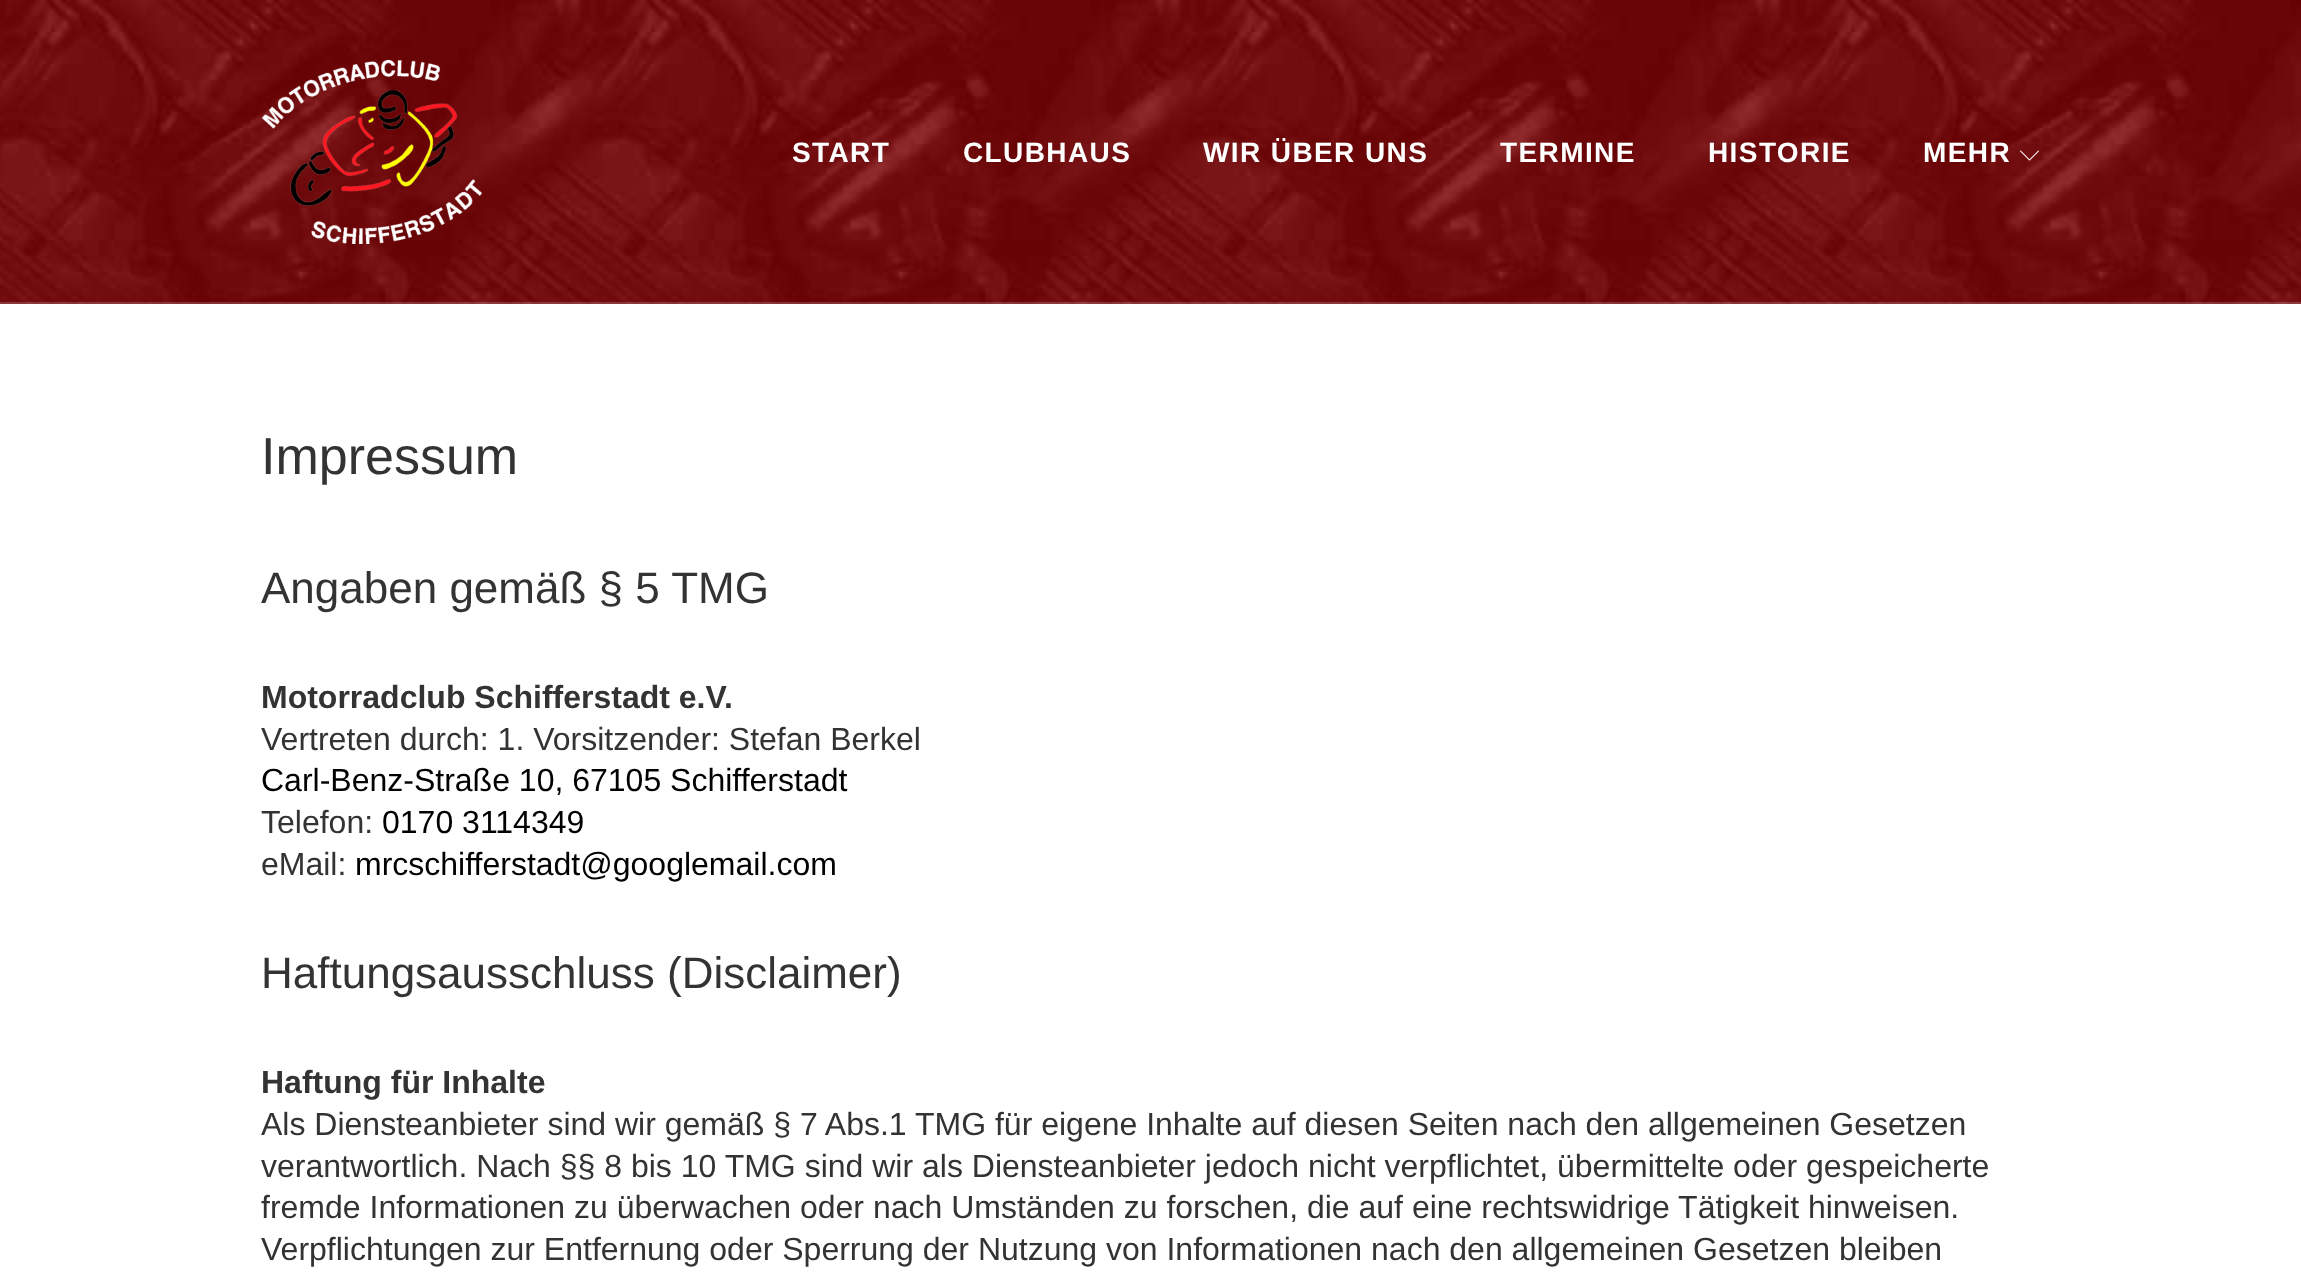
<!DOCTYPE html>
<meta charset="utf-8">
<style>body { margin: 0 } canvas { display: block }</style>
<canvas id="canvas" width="2301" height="1277"></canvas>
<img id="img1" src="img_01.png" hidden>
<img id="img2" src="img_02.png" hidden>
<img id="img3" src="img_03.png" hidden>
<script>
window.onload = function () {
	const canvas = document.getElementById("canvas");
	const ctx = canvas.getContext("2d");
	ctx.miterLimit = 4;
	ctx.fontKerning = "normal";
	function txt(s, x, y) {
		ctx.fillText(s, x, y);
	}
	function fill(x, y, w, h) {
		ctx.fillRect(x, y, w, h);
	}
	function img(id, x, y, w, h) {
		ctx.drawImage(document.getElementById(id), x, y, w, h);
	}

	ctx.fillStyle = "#FFFFFF";
	fill(0, 0, 2301, 1277);
	img("img1", 0, 0, 2301, 304);
	img("img2", 262, 60, 220, 184);
	img("img3", 2020, 150, 19, 11);
	ctx.fillStyle = "rgba(236, 236, 238, 0.2)";
	fill(0, 302, 2301, 2);
	ctx.letterSpacing = "1.4px";
	ctx.font = "bold 28px Liberation Sans";
	ctx.fillStyle = "#FFFFFF";
	txt("START", 792, 162);
	txt("CLUBHAUS", 963, 162);
	txt("WIR ÜBER UNS", 1203, 162);
	txt("TERMINE", 1500, 162);
	txt("HISTORIE", 1708, 162);
	txt("MEHR", 1923, 162);
	ctx.letterSpacing = "0px";
	ctx.font = "52px Liberation Sans";
	ctx.fillStyle = "#333333";
	txt("Impressum", 261, 474);
	ctx.font = "44px Liberation Sans";
	txt("Angaben gemäß § 5 TMG", 261, 603);
	ctx.font = "bold 32px Liberation Sans";
	txt("Motorradclub Schifferstadt e.V.", 261, 708);
	ctx.font = "32px Liberation Sans";
	txt("Vertreten durch: 1. Vorsitzender: Stefan Berkel", 261, 750);
	ctx.fillStyle = "#000000";
	txt("Carl-Benz-Straße 10, 67105 Schifferstadt", 261, 791);
	ctx.fillStyle = "#333333";
	txt("Telefon:", 261, 833);
	ctx.fillStyle = "#000000";
	txt("0170 3114349", 382, 833);
	ctx.fillStyle = "#333333";
	txt("eMail:", 261, 875);
	ctx.fillStyle = "#000000";
	txt("mrcschifferstadt@googlemail.com", 355, 875);
	ctx.font = "44px Liberation Sans";
	ctx.fillStyle = "#333333";
	txt("Haftungsausschluss (Disclaimer)", 261, 988);
	ctx.font = "bold 32px Liberation Sans";
	txt("Haftung für Inhalte", 261, 1093);
	ctx.font = "32px Liberation Sans";
	txt("Als Diensteanbieter sind wir gemäß § 7 Abs.1 TMG für eigene Inhalte auf diesen Seiten nach den allgemeinen Gesetzen", 261, 1135);
	txt("verantwortlich. Nach §§ 8 bis 10 TMG sind wir als Diensteanbieter jedoch nicht verpflichtet, übermittelte oder gespeicherte", 261, 1177);
	txt("fremde Informationen zu überwachen oder nach Umständen zu forschen, die auf eine rechtswidrige Tätigkeit hinweisen.", 261, 1218);
	txt("Verpflichtungen zur Entfernung oder Sperrung der Nutzung von Informationen nach den allgemeinen Gesetzen bleiben", 261, 1260);
};
</script>
